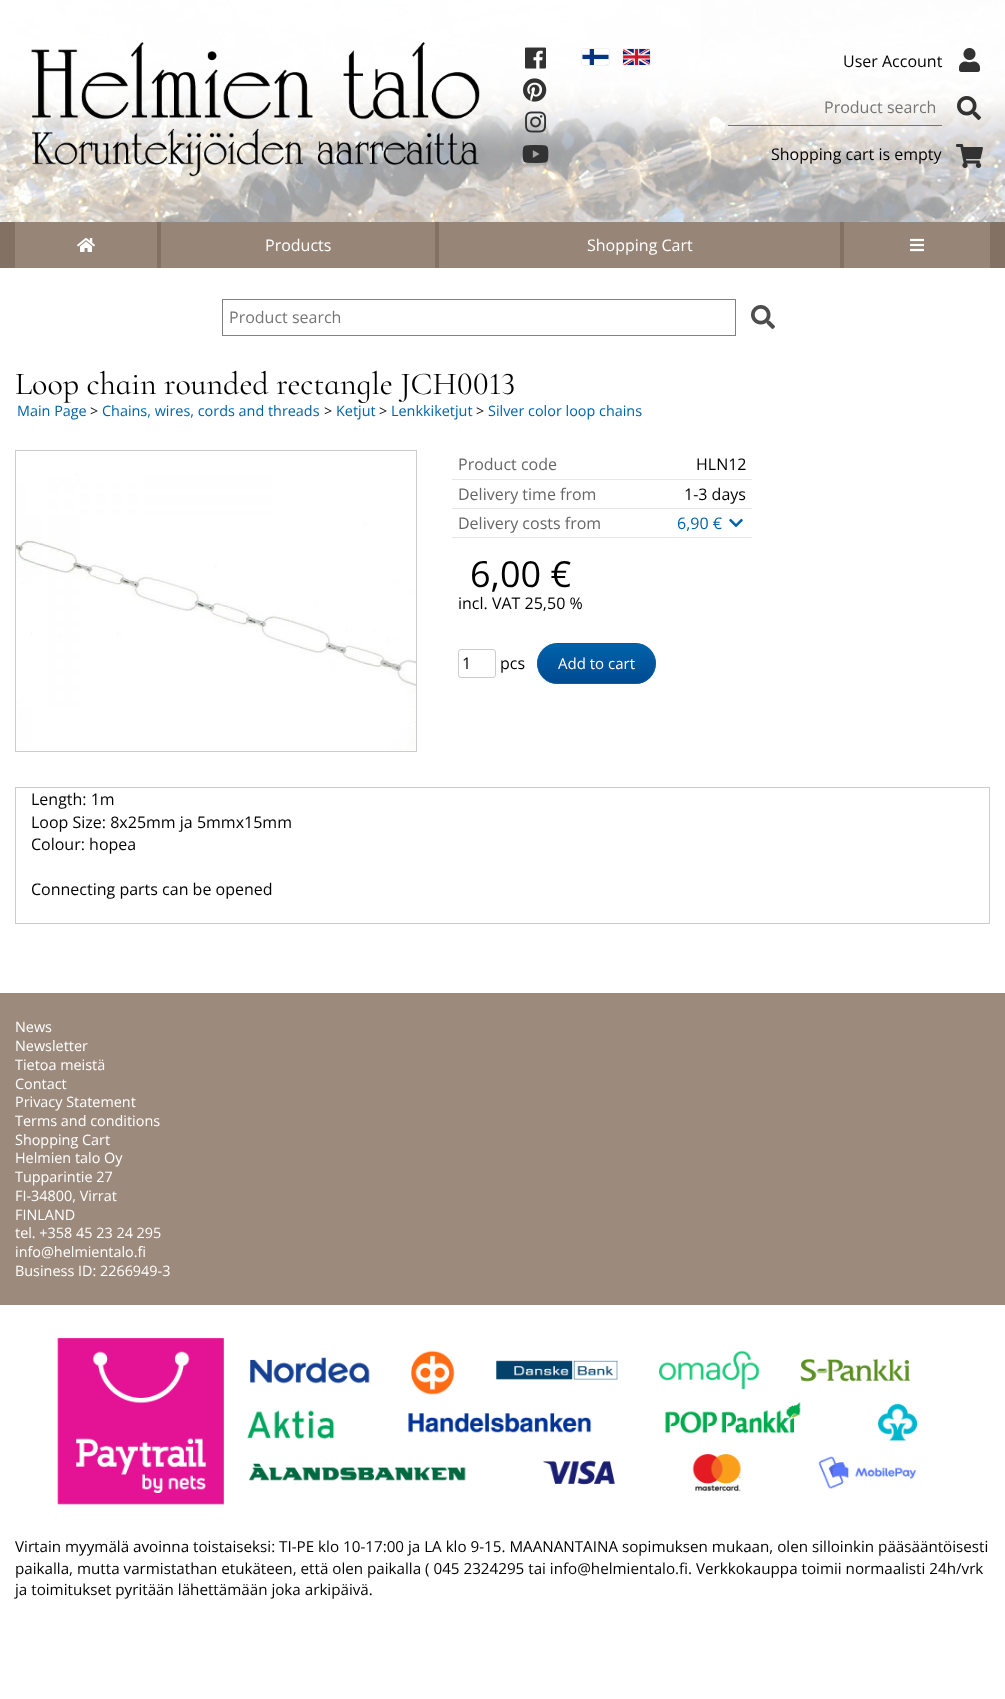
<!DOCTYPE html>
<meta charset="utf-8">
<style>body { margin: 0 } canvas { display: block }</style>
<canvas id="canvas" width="1005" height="1699"></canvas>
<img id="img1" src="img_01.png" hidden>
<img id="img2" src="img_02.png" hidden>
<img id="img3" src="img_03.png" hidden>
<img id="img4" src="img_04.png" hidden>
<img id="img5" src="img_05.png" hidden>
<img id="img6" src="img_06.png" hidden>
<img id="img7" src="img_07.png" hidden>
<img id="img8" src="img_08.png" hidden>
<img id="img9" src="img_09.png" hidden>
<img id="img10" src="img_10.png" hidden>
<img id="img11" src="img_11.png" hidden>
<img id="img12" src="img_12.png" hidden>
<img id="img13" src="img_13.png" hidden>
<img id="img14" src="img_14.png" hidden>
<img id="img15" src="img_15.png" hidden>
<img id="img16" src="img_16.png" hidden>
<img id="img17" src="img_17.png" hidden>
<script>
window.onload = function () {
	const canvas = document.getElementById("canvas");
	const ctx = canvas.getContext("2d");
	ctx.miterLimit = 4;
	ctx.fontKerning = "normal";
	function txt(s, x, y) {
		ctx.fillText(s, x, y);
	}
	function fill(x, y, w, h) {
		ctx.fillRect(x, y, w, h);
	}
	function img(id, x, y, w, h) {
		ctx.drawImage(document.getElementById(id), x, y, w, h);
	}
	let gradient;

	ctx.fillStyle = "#FFFFFF";
	fill(0, 0, 1005, 1699);
	img("img1", 0, 0, 1005, 222);
	img("img2", 31, 42, 449, 135);
	img("img3", 525, 47, 21, 22);
	img("img4", 523, 78, 24, 24);
	img("img5", 525, 111, 22, 22);
	img("img6", 522, 145, 27, 18);
	ctx.beginPath();
	ctx.roundRect(581.5, 48.5, 28, 17, 2.5);
	ctx.strokeStyle = "#F1F1F1";
	ctx.stroke();
	ctx.beginPath();
	ctx.roundRect(622.5, 48.5, 28, 17, 2.5);
	ctx.stroke();
	img("img7", 582, 49, 27, 16);
	img("img8", 623, 49, 27, 16);
	img("img9", 959, 48, 21, 24);
	ctx.fillStyle = "rgba(0, 0, 0, 0.5)";
	fill(728, 125, 214, 1);
	img("img10", 957, 96, 24, 24);
	img("img11", 956, 144, 27, 24);
	ctx.fillStyle = "#837163";
	fill(0, 222, 1005, 46);
	ctx.fillStyle = "#978577";
	fill(15, 222, 142, 46);
	img("img12", 77, 238, 18, 14);
	fill(161, 222, 274, 46);
	fill(439, 222, 401, 46);
	fill(844, 222, 146, 46);
	img("img13", 910, 238, 14, 14);
	ctx.strokeStyle = "#808080";
	ctx.strokeRect(222.5, 299.5, 513, 36);
	img("img14", 751, 305, 24, 24);
	ctx.strokeStyle = "#CCCCCC";
	ctx.strokeRect(15.5, 450.5, 401, 301);
	img("img15", 16, 473, 400, 278);
	ctx.fillStyle = "#E6E6E6";
	fill(452, 479, 300, 1);
	fill(452, 508, 300, 1);
	fill(452, 537, 300, 1);
	img("img16", 729, 518, 14, 10);
	ctx.beginPath();
	ctx.roundRect(458.5, 649.5, 37, 28, 2.5);
	ctx.stroke();
	ctx.save();
	ctx.beginPath();
	ctx.roundRect(537, 643, 119, 41, 20.5);
	ctx.clip();
	gradient = ctx.createLinearGradient(597, 605, 597, 644);
	gradient.addColorStop(0, "#0063AA");
	gradient.addColorStop(1, "#004A91");
	ctx.fillStyle = gradient;
	fill(551, 643, 91, 1);
	gradient = ctx.createLinearGradient(597, 644, 597, 683);
	gradient.addColorStop(0, "#0063AA");
	gradient.addColorStop(1, "#004A91");
	ctx.fillStyle = gradient;
	fill(537, 644, 119, 39);
	gradient = ctx.createLinearGradient(597, 683, 597, 722);
	gradient.addColorStop(0, "#0063AA");
	gradient.addColorStop(1, "#004A91");
	ctx.fillStyle = gradient;
	fill(551, 683, 91, 1);
	ctx.restore();
	ctx.beginPath();
	ctx.roundRect(537.5, 643.5, 118, 40, 20);
	ctx.strokeStyle = "rgba(0, 99, 170, 0.5)";
	ctx.stroke();
	ctx.strokeStyle = "#CCCCCC";
	ctx.strokeRect(15.5, 787.5, 974, 136);
	ctx.fillStyle = "#9C8A7C";
	fill(0, 993, 1005, 312);
	img("img17", 57, 1338, 861, 167);
	ctx.font = "16px Open Sans";
	ctx.fillStyle = "#000000";
	txt("User Account", 843, 67);
	ctx.fillStyle = "#757575";
	txt("Product search", 824, 113);
	ctx.fillStyle = "#000000";
	txt("Shopping cart is empty", 771, 160);
	ctx.fillStyle = "#FFFFFF";
	txt("Products", 265, 251);
	txt("Shopping Cart", 587, 251);
	ctx.fillStyle = "#757575";
	txt("Product search", 229, 323);
	ctx.font = "32px Cormorant Infant";
	ctx.fillStyle = "#000000";
	txt("Loop chain rounded rectangle JCH0013", 15, 394);
	ctx.font = "14.4px Open Sans";
	ctx.fillStyle = "#0063AA";
	txt("Main Page", 17, 416);
	ctx.fillStyle = "#000000";
	txt(">", 90, 416);
	ctx.fillStyle = "#0063AA";
	txt("Chains, wires, cords and threads", 102, 416);
	ctx.fillStyle = "#000000";
	txt(">", 324, 416);
	ctx.fillStyle = "#0063AA";
	txt("Ketjut", 336, 416);
	ctx.fillStyle = "#000000";
	txt(">", 379, 416);
	ctx.fillStyle = "#0063AA";
	txt("Lenkkiketjut", 391, 416);
	ctx.fillStyle = "#000000";
	txt(">", 476, 416);
	ctx.fillStyle = "#0063AA";
	txt("Silver color loop chains", 488, 416);
	ctx.font = "16px Open Sans";
	ctx.fillStyle = "#666666";
	txt("Product code", 458, 470);
	ctx.fillStyle = "#000000";
	txt("HLN12", 696, 470);
	ctx.fillStyle = "#666666";
	txt("Delivery time from", 458, 500);
	ctx.fillStyle = "#000000";
	txt("1-3 days", 684, 500);
	ctx.fillStyle = "#666666";
	txt("Delivery costs from", 458, 529);
	ctx.fillStyle = "#0063AA";
	txt("6,90 €", 677, 529);
	ctx.font = "36px Open Sans";
	ctx.fillStyle = "#000000";
	txt("6,00 €", 470, 587);
	ctx.font = "16px Open Sans";
	txt("incl. VAT 25,50 %", 458, 609);
	txt("1", 462, 669);
	txt("pcs", 500, 669);
	ctx.font = "15px Open Sans";
	ctx.fillStyle = "#FFFFFF";
	txt("Add to cart", 558, 669);
	ctx.font = "16px Open Sans";
	ctx.fillStyle = "#000000";
	txt("Length: 1m", 31, 805);
	txt("Loop Size: 8x25mm ja 5mmx15mm", 31, 828);
	txt("Colour: hopea", 31, 850);
	txt("Connecting parts can be opened", 31, 895);
	ctx.font = "14.4px Open Sans";
	ctx.fillStyle = "#FFFFFF";
	txt("News", 15, 1032);
	txt("Newsletter", 15, 1051);
	txt("Tietoa meistä", 15, 1070);
	txt("Contact", 15, 1089);
	txt("Privacy Statement", 15, 1107);
	txt("Terms and conditions", 15, 1126);
	txt("Shopping Cart", 15, 1145);
	txt("Helmien talo Oy", 15, 1163);
	txt("Tupparintie 27", 15, 1182);
	txt("FI-34800, Virrat", 15, 1201);
	txt("FINLAND", 15, 1220);
	txt("tel. +358 45 23 24 295", 15, 1238);
	txt("info@helmientalo.fi", 15, 1257);
	txt("Business ID: 2266949-3", 15, 1276);
	ctx.font = "15.2px Open Sans";
	ctx.fillStyle = "#000000";
	txt("Virtain myymälä avoinna toistaiseksi: TI-PE klo 10-17:00 ja LA klo 9-15. MAANANTAINA sopimuksen mukaan, olen silloinkin pääsääntöisesti", 15, 1552);
	txt("paikalla, mutta varmistathan etukäteen, että olen paikalla ( 045 2324295 tai info@helmientalo.fi. Verkkokauppa toimii normaalisti 24h/vrk", 15, 1574);
	txt("ja toimitukset pyritään lähettämään joka arkipäivä.", 15, 1595);
};
</script>
